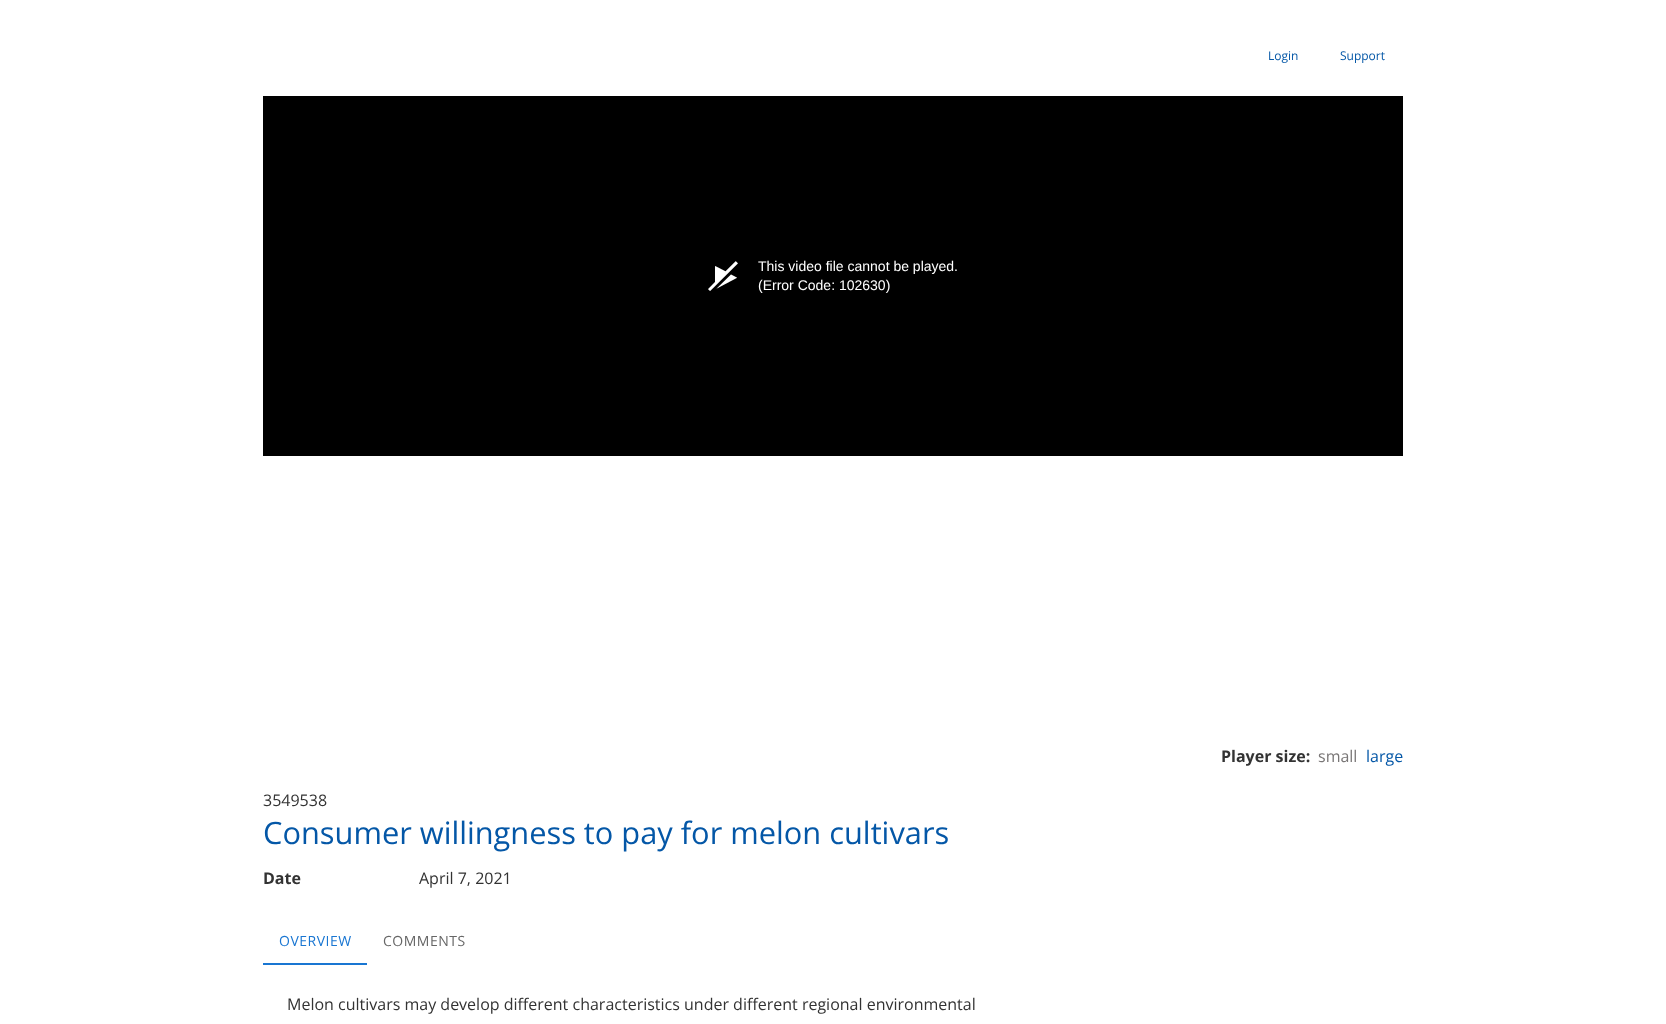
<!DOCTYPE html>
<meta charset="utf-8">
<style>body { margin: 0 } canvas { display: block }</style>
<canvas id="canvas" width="1666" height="1024"></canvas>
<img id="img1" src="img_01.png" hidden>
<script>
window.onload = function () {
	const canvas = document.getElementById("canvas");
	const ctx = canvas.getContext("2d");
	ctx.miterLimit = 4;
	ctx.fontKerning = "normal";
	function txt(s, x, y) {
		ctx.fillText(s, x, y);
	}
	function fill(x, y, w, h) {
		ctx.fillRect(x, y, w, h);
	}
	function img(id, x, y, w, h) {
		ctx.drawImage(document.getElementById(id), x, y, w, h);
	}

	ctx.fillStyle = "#FFFFFF";
	fill(0, 0, 1666, 1024);
	ctx.fillStyle = "#000000";
	fill(263, 96, 1140, 360);
	img("img1", 708, 261, 30, 30);
	ctx.fillStyle = "#1976D2";
	fill(263, 963, 104, 2);
	ctx.font = "12px Open Sans";
	ctx.fillStyle = "#0457A7";
	txt("Login", 1268, 60);
	txt("Support", 1340, 60);
	ctx.font = "14px Liberation Sans";
	ctx.fillStyle = "#FFFFFF";
	txt("This video file cannot be played.", 758, 271);
	txt("(Error Code: 102630)", 758, 290);
	ctx.font = "bold 16px Open Sans";
	ctx.fillStyle = "#333333";
	txt("Player size:", 1221, 762);
	ctx.font = "16px Open Sans";
	ctx.fillStyle = "#797676";
	txt("small", 1318, 762);
	ctx.fillStyle = "#0457A7";
	txt("large", 1366, 762);
	ctx.fillStyle = "#333333";
	txt("3549538", 263, 806);
	ctx.font = "30.8px Open Sans";
	ctx.fillStyle = "#0457A7";
	txt("Consumer willingness to pay for melon cultivars", 263, 844);
	ctx.font = "bold 16px Open Sans";
	ctx.fillStyle = "#333333";
	txt("Date", 263, 884);
	ctx.font = "16px Open Sans";
	txt("April 7, 2021", 419, 884);
	ctx.letterSpacing = "0.5px";
	ctx.font = "14px Open Sans";
	ctx.fillStyle = "#1976D2";
	txt("OVERVIEW", 279, 946);
	ctx.fillStyle = "#666666";
	txt("COMMENTS", 383, 946);
	ctx.letterSpacing = "0px";
	ctx.font = "16px Open Sans";
	ctx.fillStyle = "#333333";
	txt("Melon cultivars may develop different characteristics under different regional environmental", 287, 1010);
};
</script>
